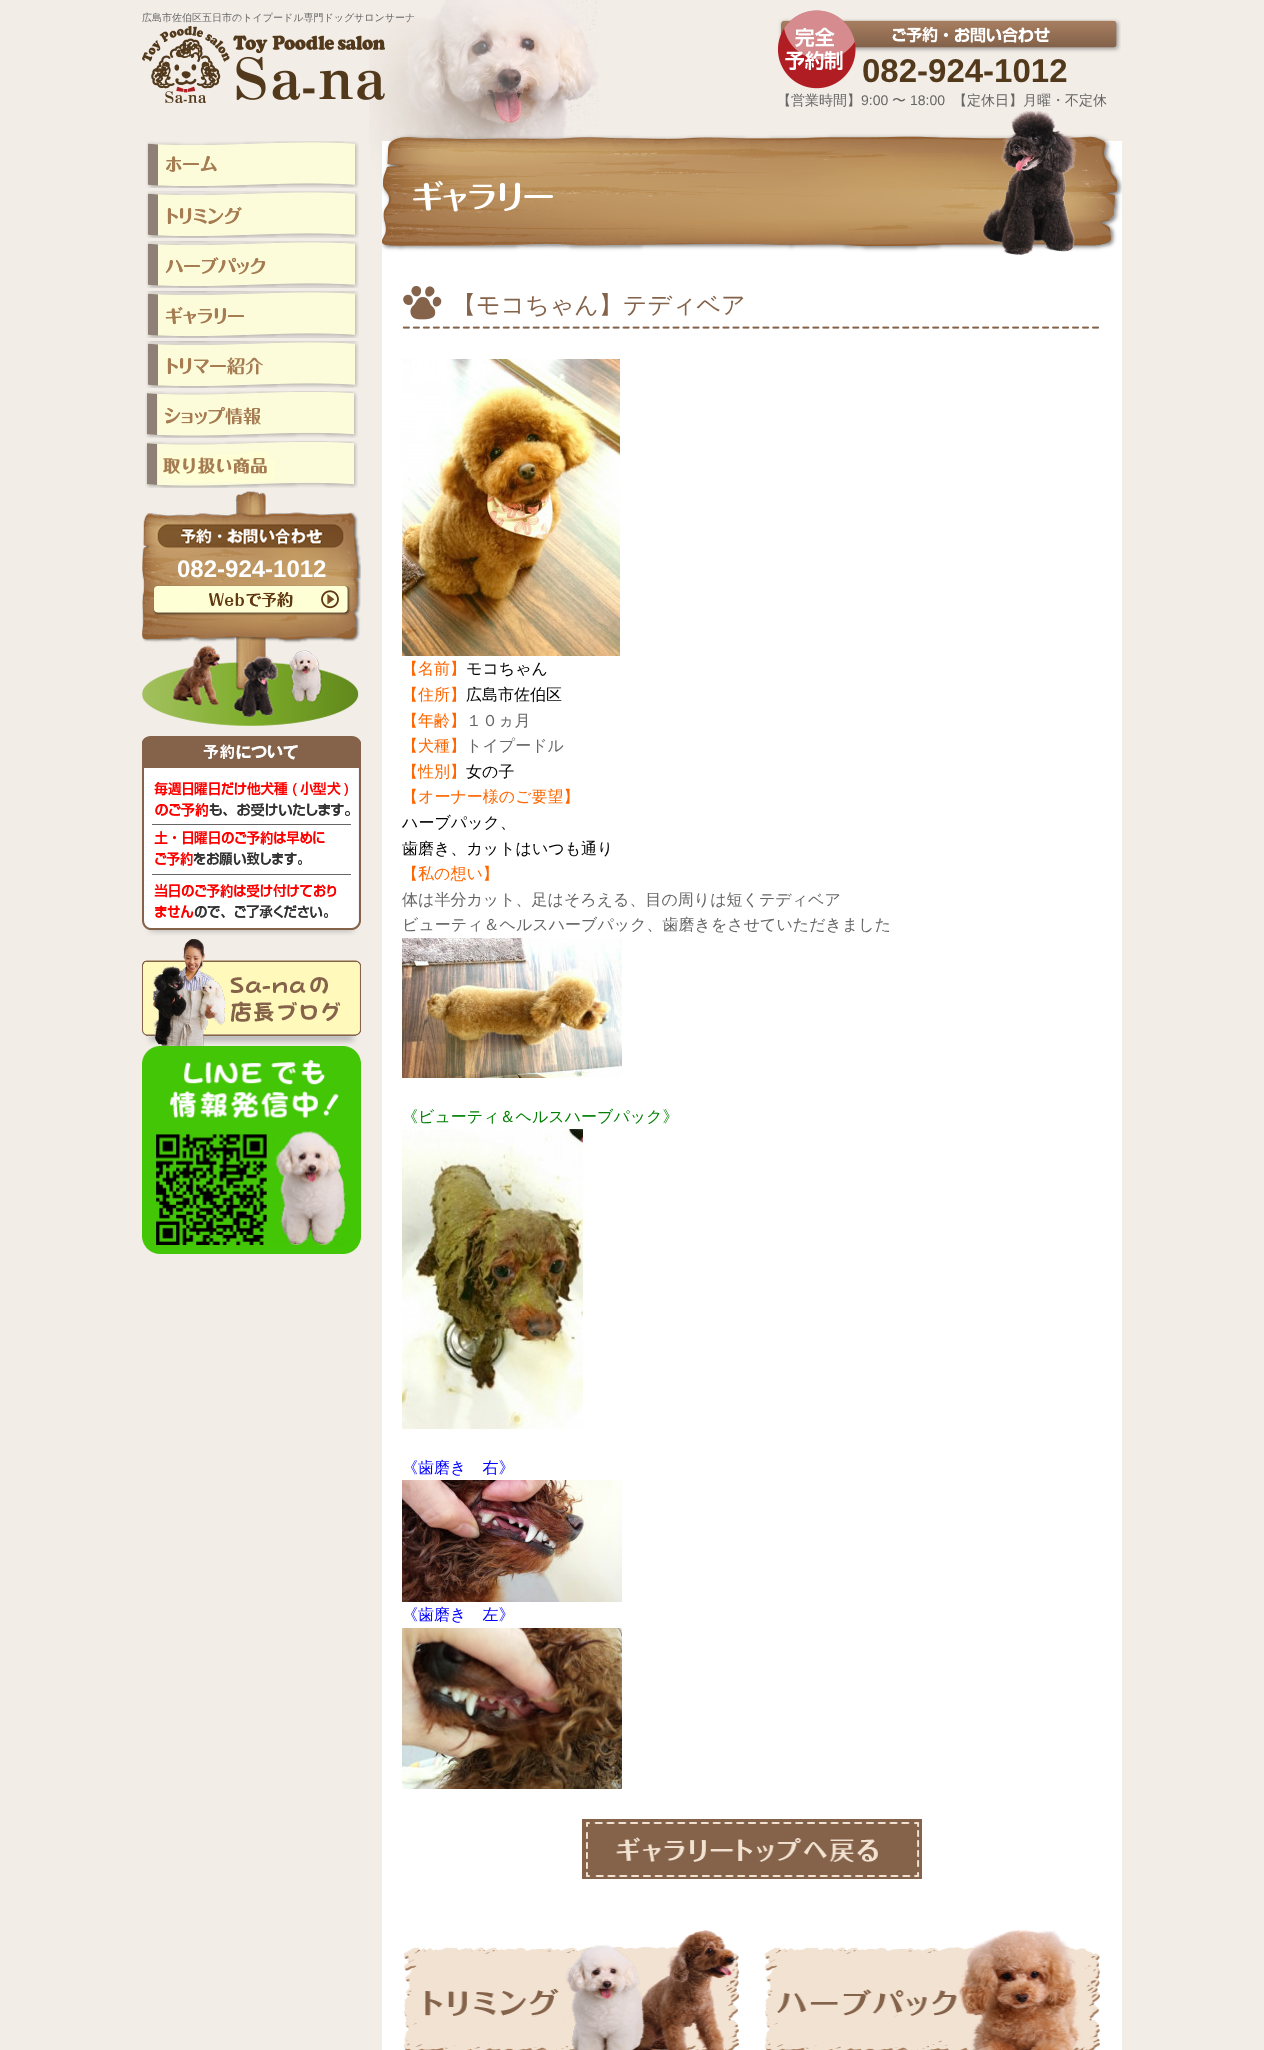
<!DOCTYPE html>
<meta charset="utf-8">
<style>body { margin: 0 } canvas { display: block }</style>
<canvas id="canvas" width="1264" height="2050"></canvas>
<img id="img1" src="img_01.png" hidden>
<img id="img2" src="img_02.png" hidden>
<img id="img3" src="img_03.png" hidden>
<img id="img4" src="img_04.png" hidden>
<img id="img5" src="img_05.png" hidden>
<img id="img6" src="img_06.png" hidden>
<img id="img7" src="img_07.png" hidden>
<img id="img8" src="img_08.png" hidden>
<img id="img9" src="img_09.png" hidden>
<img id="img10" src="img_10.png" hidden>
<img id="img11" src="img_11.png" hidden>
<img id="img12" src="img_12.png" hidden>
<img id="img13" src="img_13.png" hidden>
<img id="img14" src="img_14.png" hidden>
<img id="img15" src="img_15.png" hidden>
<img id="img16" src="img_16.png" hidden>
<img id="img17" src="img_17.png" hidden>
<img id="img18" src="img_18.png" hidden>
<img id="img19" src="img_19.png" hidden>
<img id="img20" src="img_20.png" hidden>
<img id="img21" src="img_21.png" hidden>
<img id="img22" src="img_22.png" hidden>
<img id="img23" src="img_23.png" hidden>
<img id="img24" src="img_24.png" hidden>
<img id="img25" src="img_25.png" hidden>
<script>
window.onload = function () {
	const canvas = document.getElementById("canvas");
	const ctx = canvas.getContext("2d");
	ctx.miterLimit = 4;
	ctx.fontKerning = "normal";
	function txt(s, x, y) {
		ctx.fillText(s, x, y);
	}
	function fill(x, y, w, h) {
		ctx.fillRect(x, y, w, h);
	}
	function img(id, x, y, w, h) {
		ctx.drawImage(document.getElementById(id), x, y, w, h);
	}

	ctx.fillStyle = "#F2EDE7";
	fill(0, 0, 1264, 2050);
	img("img1", 369, 0, 230, 254);
	img("img2", 142, 26, 243, 77);
	img("img3", 777, 10, 344, 79);
	img("img4", 146, 141, 213, 47);
	img("img5", 146, 191, 213, 47);
	img("img6", 146, 241, 213, 47);
	img("img7", 146, 291, 213, 47);
	img("img8", 146, 341, 213, 47);
	img("img9", 145, 391, 213, 47);
	img("img10", 145, 441, 213, 47);
	img("img11", 142, 491, 219, 235);
	img("img12", 153, 585, 198, 31);
	img("img13", 142, 736, 219, 200);
	img("img14", 142, 939, 219, 107);
	img("img15", 142, 1046, 219, 208);
	ctx.fillStyle = "#FFFFFF";
	fill(382, 141, 740, 1909);
	img("img16", 382, 111, 740, 144);
	img("img17", 402, 286, 697, 43);
	img("img18", 402, 359, 218, 297);
	img("img19", 402, 938, 220, 140);
	img("img20", 402, 1129, 181, 300);
	img("img21", 402, 1480, 220, 122);
	img("img22", 402, 1628, 220, 161);
	img("img23", 582, 1819, 340, 60);
	img("img24", 403, 1930, 337, 120);
	img("img25", 764, 1929, 336, 121);
	ctx.font = "500 10px WenQuanYi Zen Hei";
	ctx.fillStyle = "#666666";
	txt("広島市佐伯区五日市のトイプードル専門ドッグサロンサーナ", 142, 21);
	ctx.font = "bold 33px Liberation Sans";
	ctx.fillStyle = "#52391B";
	txt("082-924-1012", 862, 82);
	ctx.font = "500 14px WenQuanYi Zen Hei";
	ctx.fillStyle = "#666666";
	txt("【営業時間】", 777, 105);
	ctx.font = "14px Liberation Sans";
	txt("9:00", 861, 105);
	ctx.font = "500 14px WenQuanYi Zen Hei";
	txt("〜", 892, 105);
	ctx.font = "14px Liberation Sans";
	txt("18:00", 910, 105);
	ctx.font = "500 14px WenQuanYi Zen Hei";
	txt("【定休日】月曜・不定休", 953, 105);
	ctx.font = "bold 24px Liberation Sans";
	ctx.fillStyle = "#FFFFFF";
	txt("082-924-1012", 177, 577);
	ctx.font = "500 24px WenQuanYi Zen Hei";
	ctx.fillStyle = "#85634B";
	txt("【モコちゃん】テディベア", 452, 313);
	ctx.font = "500 16px WenQuanYi Zen Hei";
	ctx.fillStyle = "#FF6600";
	txt("【名前】", 402, 674);
	ctx.fillStyle = "#000000";
	txt("モコちゃん", 466, 674);
	ctx.fillStyle = "#FF6600";
	txt("【住所】", 402, 700);
	ctx.fillStyle = "#000000";
	txt("広島市佐伯区", 466, 700);
	ctx.fillStyle = "#FF6600";
	txt("【年齢】", 402, 726);
	ctx.fillStyle = "#666666";
	txt("１０ヵ月", 466, 726);
	ctx.fillStyle = "#FF6600";
	txt("【犬種】", 402, 751);
	ctx.fillStyle = "#666666";
	txt("トイプードル", 466, 751);
	ctx.fillStyle = "#FF6600";
	txt("【性別】", 402, 777);
	ctx.fillStyle = "#000000";
	txt("女の子", 466, 777);
	ctx.fillStyle = "#FF6600";
	txt("【オーナー様のご要望】", 402, 802);
	ctx.fillStyle = "#000000";
	txt("ハーブパック、", 402, 828);
	txt("歯磨き、カットはいつも通り", 402, 854);
	ctx.fillStyle = "#FF6600";
	txt("【私の想い】", 402, 879);
	ctx.fillStyle = "#666666";
	txt("体は半分カット、足はそろえる、目の周りは短くテディベア", 402, 905);
	txt("ビューティ＆ヘルスハーブパック、歯磨きをさせていただきました", 402, 930);
	ctx.fillStyle = "#008000";
	txt("《ビューティ＆ヘルスハーブパック》", 402, 1122);
	ctx.fillStyle = "#0000FF";
	txt("《歯磨き　右》", 402, 1473);
	txt("《歯磨き　左》", 402, 1620);
};
</script>
